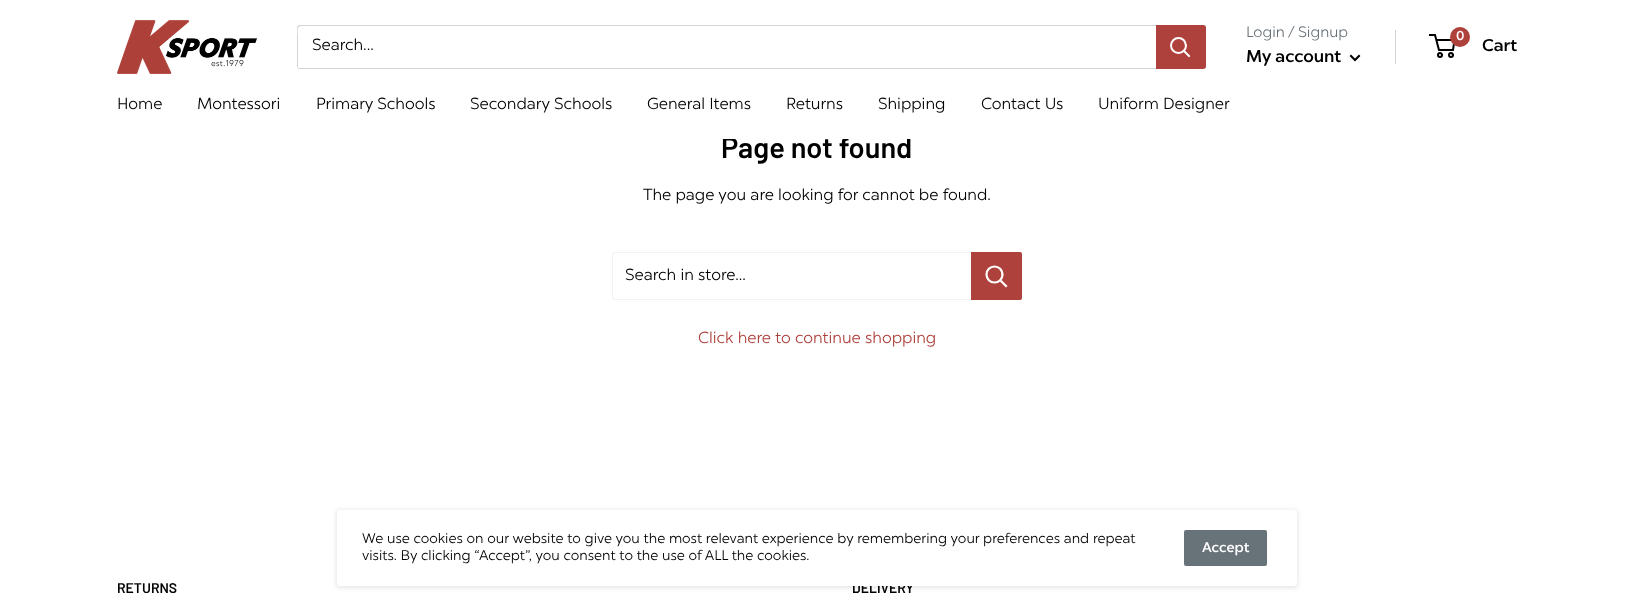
<!DOCTYPE html>
<meta charset="utf-8">
<style>body { margin: 0 } canvas { display: block }</style>
<canvas id="canvas" width="1634" height="611"></canvas>
<img id="img1" src="img_01.png" hidden>
<script>
window.onload = function () {
	const canvas = document.getElementById("canvas");
	const ctx = canvas.getContext("2d");
	ctx.miterLimit = 4;
	ctx.fontKerning = "normal";
	function txt(s, x, y) {
		ctx.fillText(s, x, y);
	}
	function fill(x, y, w, h) {
		ctx.fillRect(x, y, w, h);
	}
	function round(x, y, w, h, r) {
		ctx.beginPath();
		ctx.roundRect(x, y, w, h, r);
		ctx.fill();
	}
	function img(id, x, y, w, h) {
		ctx.drawImage(document.getElementById(id), x, y, w, h);
	}

	ctx.fillStyle = "#FFFFFF";
	fill(0, 0, 1634, 611);
	img("img1", 117, 20, 140, 54);
	ctx.fillStyle = "#D1D5D7";
	ctx.beginPath();
	ctx.moveTo(298, 68);
	ctx.bezierCurveTo(298, 69, 299, 69, 300, 69);
	ctx.lineTo(1203, 69);
	ctx.bezierCurveTo(1205, 69, 1206, 68, 1206, 66);
	ctx.lineTo(1206, 28);
	ctx.bezierCurveTo(1206, 27, 1206, 26, 1205, 26);
	ctx.lineTo(1205, 59);
	ctx.bezierCurveTo(1205, 61, 1207, 68, 1202, 68);
	ctx.closePath();
	ctx.fill();
	ctx.beginPath();
	ctx.moveTo(301, 26);
	ctx.lineTo(1205, 26);
	ctx.bezierCurveTo(1205, 25, 1204, 25, 1203, 25);
	ctx.lineTo(300, 25);
	ctx.bezierCurveTo(298, 25, 297, 26, 297, 28);
	ctx.lineTo(297, 66);
	ctx.bezierCurveTo(297, 67, 297, 68, 298, 68);
	ctx.lineTo(298, 35);
	ctx.bezierCurveTo(298, 33, 296, 26, 301, 26);
	ctx.closePath();
	ctx.fill();
	ctx.fillStyle = "#AE413B";
	ctx.beginPath();
	ctx.roundRect(1156, 25, 50, 44, [0, 3, 3, 0]);
	ctx.fill();
	ctx.beginPath();
	ctx.moveTo(1189, 56);
	ctx.lineTo(1184, 51);
	ctx.strokeStyle = "#FFFFFF";
	ctx.lineWidth = 2;
	ctx.lineCap = "square";
	ctx.stroke();
	ctx.beginPath();
	ctx.arc(1178.5, 45.5, 7.5, 0, Math.PI * 2);
	ctx.stroke();
	ctx.fillStyle = "#D1D5D7";
	fill(1395, 30, 1, 34);
	ctx.beginPath();
	ctx.moveTo(1359, 56);
	ctx.lineTo(1355, 60);
	ctx.lineTo(1351, 56);
	ctx.strokeStyle = "#000000";
	ctx.stroke();
	ctx.beginPath();
	ctx.arc(1440, 55, 2, 0, Math.PI * 2);
	ctx.stroke();
	ctx.beginPath();
	ctx.arc(1451, 55, 2, 0, Math.PI * 2);
	ctx.stroke();
	ctx.beginPath();
	ctx.moveTo(1436.5, 40);
	ctx.lineTo(1454.5, 40);
	ctx.lineTo(1453, 50);
	ctx.lineTo(1439, 50);
	ctx.lineTo(1435, 35);
	ctx.lineTo(1429, 35);
	ctx.lineCap = "butt";
	ctx.stroke();
	ctx.fillStyle = "#AE413B";
	ctx.beginPath();
	ctx.arc(1460, 37, 10, 0, Math.PI * 2);
	ctx.fill();
	ctx.fillStyle = "#F2F2F2";
	fill(613, 252, 358, 1);
	fill(613, 299, 358, 1);
	fill(612, 253, 1, 46);
	ctx.fillStyle = "#AE413B";
	ctx.beginPath();
	ctx.roundRect(971, 252, 51, 48, [0, 2, 2, 0]);
	ctx.fill();
	ctx.beginPath();
	ctx.moveTo(1006, 286);
	ctx.lineTo(1000.5, 280.5);
	ctx.strokeStyle = "#FFFFFF";
	ctx.lineWidth = 2.2;
	ctx.lineCap = "square";
	ctx.stroke();
	ctx.beginPath();
	ctx.arc(994.5, 274.5, 8, 0, Math.PI * 2);
	ctx.stroke();
	ctx.fillStyle = "rgba(0, 0, 0, 0.1)";
	ctx.filter = "blur(2px)";
	ctx.beginPath();
	ctx.roundRect(336, 510, 962, 78, 4);
	ctx.fill();
	ctx.filter = "none";
	ctx.font = "300 16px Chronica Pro";
	ctx.fillStyle = "#000000";
	txt("Search...", 312, 50);
	ctx.font = "300 15px Chronica Pro";
	ctx.fillStyle = "#677279";
	txt("Login / Signup", 1246, 37);
	ctx.font = "500 17px Chronica Pro";
	ctx.fillStyle = "#000000";
	txt("My account", 1246, 62);
	ctx.font = "500 13px Chronica Pro";
	ctx.fillStyle = "#FFFFFF";
	txt("0", 1456, 40);
	ctx.font = "500 17px Chronica Pro";
	ctx.fillStyle = "#000000";
	txt("Cart", 1482, 51);
	ctx.font = "300 16px Chronica Pro";
	txt("Home", 117, 109);
	txt("Montessori", 197, 109);
	txt("Primary Schools", 316, 109);
	txt("Secondary Schools", 470, 109);
	txt("General Items", 647, 109);
	txt("Returns", 786, 109);
	txt("Shipping", 878, 109);
	txt("Contact Us", 981, 109);
	txt("Uniform Designer", 1098, 109);
	ctx.font = "600 29px Barlow";
	txt("Page not found", 721, 158);
	ctx.fillStyle = "#FFFFFF";
	fill(723, 137, 188, 2);
	ctx.font = "300 16px Chronica Pro";
	ctx.fillStyle = "#000000";
	txt("The page you are looking for cannot be found.", 643, 200);
	txt("Search in store...", 625, 280);
	ctx.fillStyle = "#AE413B";
	txt("Click here to continue shopping", 698, 343);
	ctx.font = "600 14px Barlow";
	ctx.fillStyle = "#000000";
	txt("RETURNS", 117, 593);
	txt("DELIVERY", 852, 593);
	ctx.fillStyle = "#FFFFFF";
	round(337, 510, 960, 76, 3);
	ctx.fillStyle = "#677279";
	round(1184, 530, 83, 36, 2);
	ctx.font = "500 14px Chronica Pro";
	ctx.fillStyle = "#FFFFFF";
	txt("Accept", 1202, 552);
	ctx.font = "300 14px Chronica Pro";
	ctx.fillStyle = "#000000";
	txt("visits. By clicking “Accept”, you consent to the use of ALL the cookies.", 362, 560);
	txt("We use cookies on our website to give you the most relevant experience by remembering your preferences and repeat", 362, 543);
};
</script>
